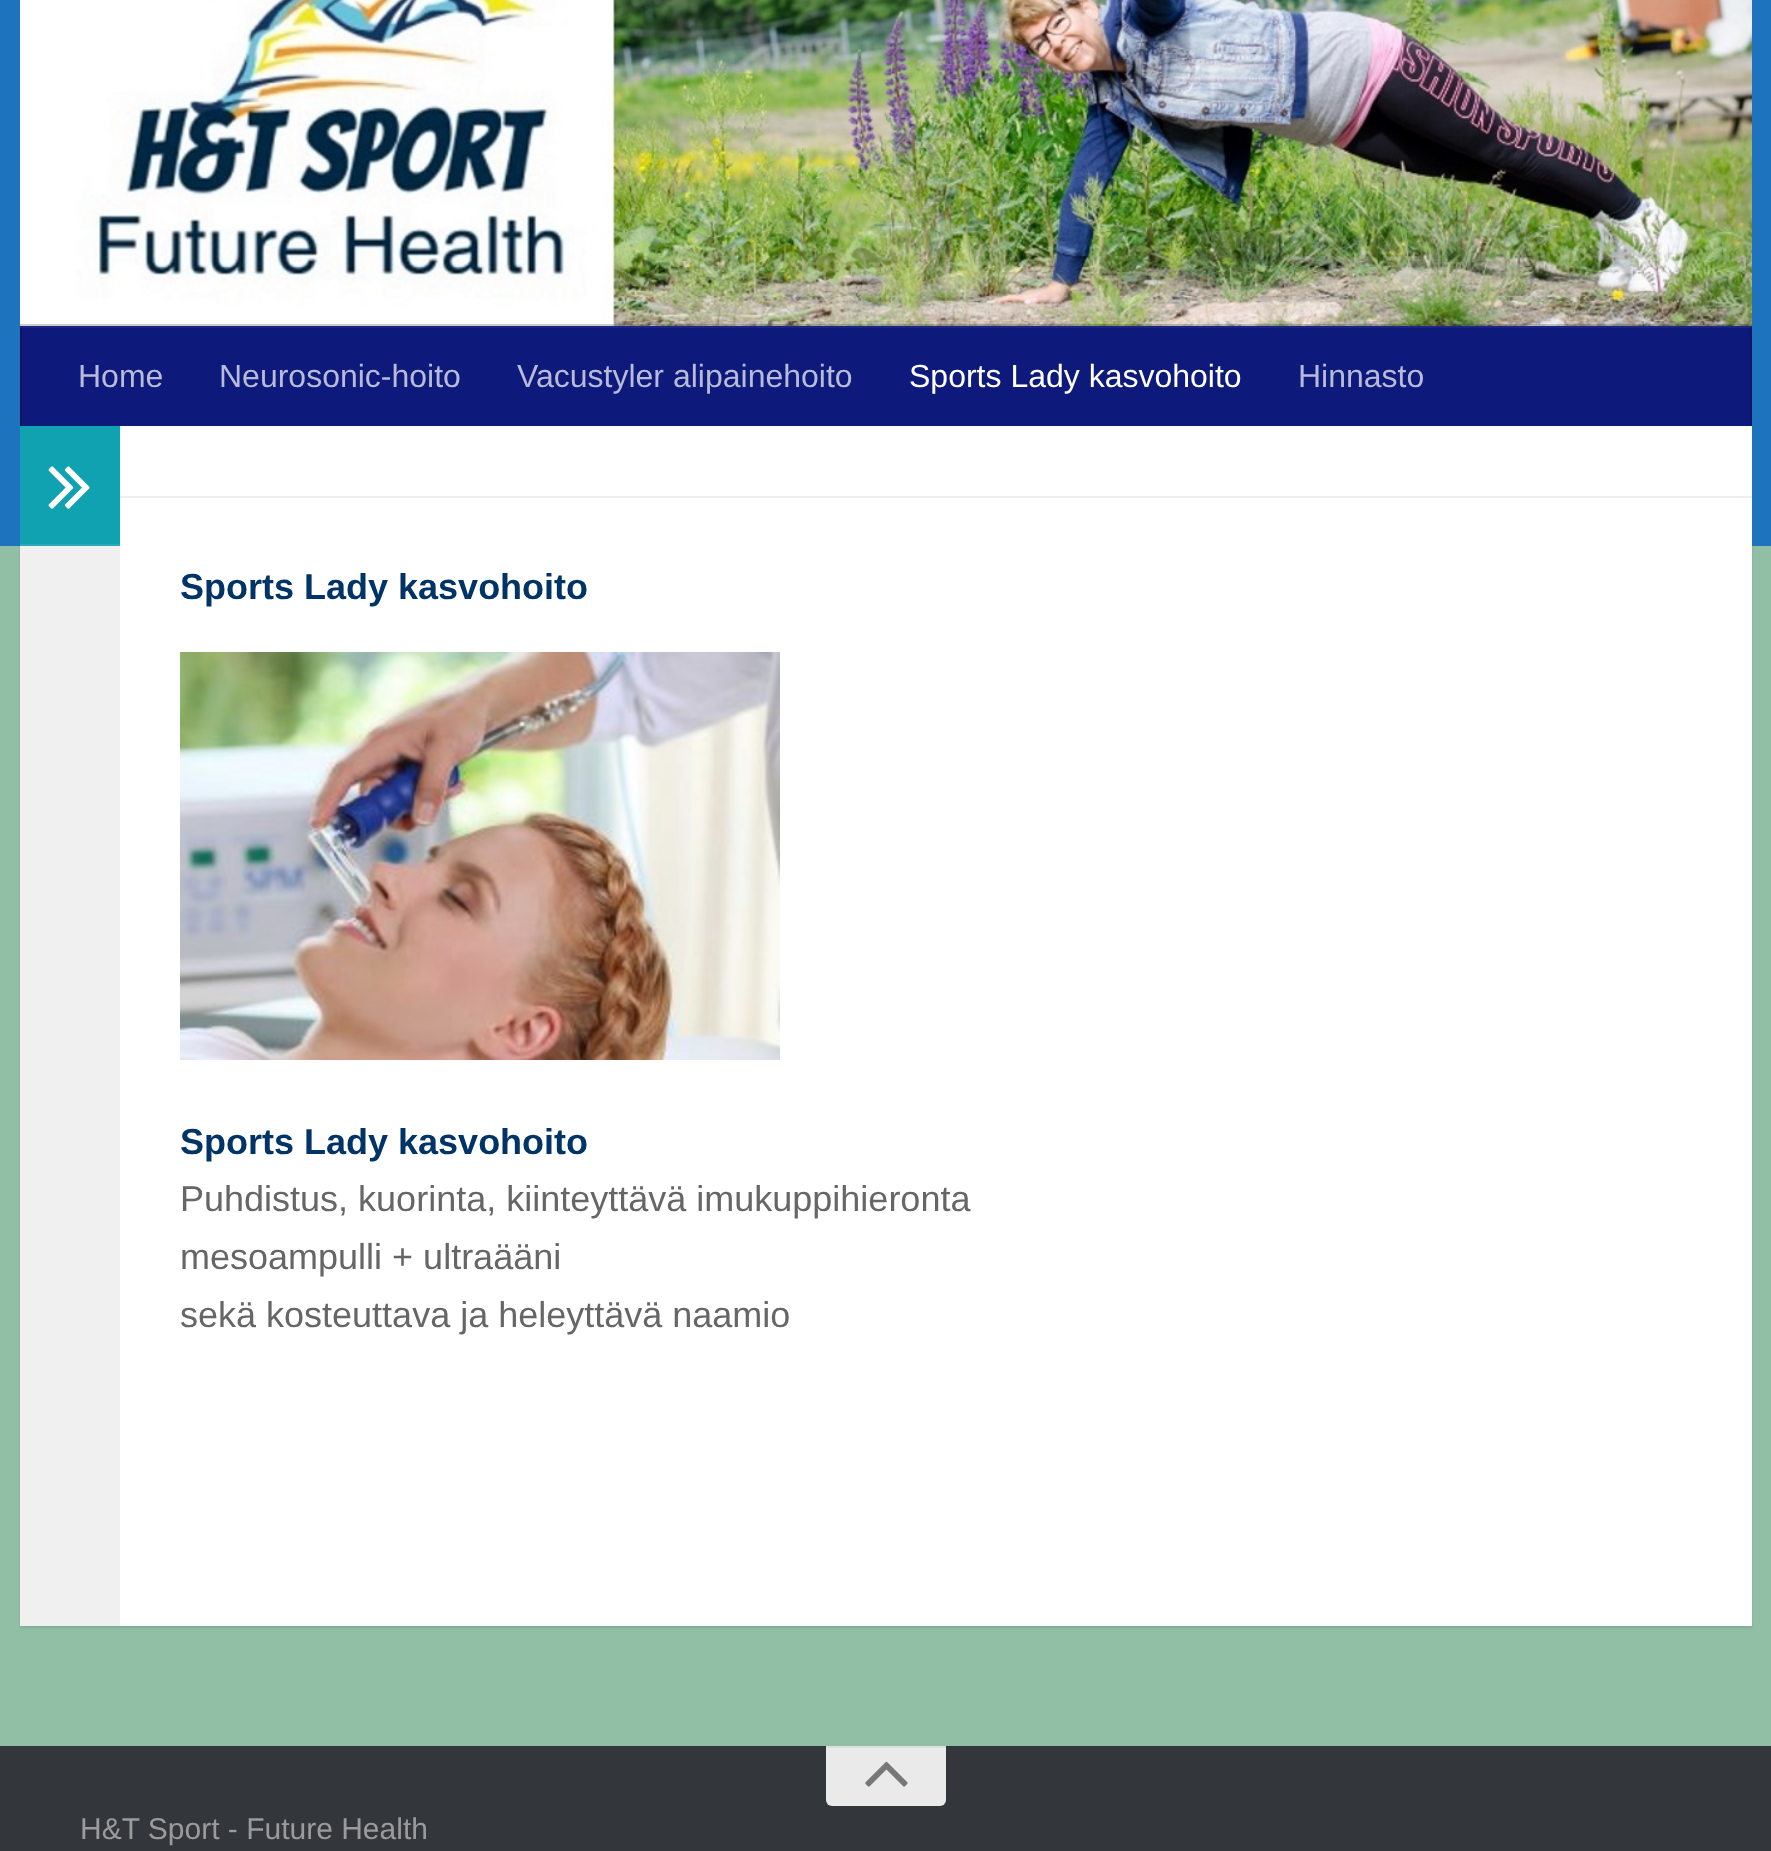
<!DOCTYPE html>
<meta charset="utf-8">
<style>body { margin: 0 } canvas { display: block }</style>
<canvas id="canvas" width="1771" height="1851"></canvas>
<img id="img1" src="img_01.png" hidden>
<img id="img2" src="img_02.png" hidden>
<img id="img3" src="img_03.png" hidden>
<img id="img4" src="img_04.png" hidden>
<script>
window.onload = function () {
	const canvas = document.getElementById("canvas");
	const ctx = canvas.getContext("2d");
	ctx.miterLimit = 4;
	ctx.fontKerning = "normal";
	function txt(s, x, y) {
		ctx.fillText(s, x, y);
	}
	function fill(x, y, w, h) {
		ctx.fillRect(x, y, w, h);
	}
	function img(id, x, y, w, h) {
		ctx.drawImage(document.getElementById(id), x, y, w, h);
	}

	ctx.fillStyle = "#90BFA5";
	fill(0, 0, 1771, 1851);
	ctx.fillStyle = "rgba(0, 0, 0, 0.1)";
	ctx.filter = "blur(1px)";
	ctx.beginPath();
	ctx.rect(20, 428, 1732, 1200);
	ctx.fill();
	ctx.filter = "none";
	ctx.fillStyle = "#1E73BE";
	fill(0, 0, 1771, 546);
	img("img1", 20, 0, 1732, 326);
	ctx.fillStyle = "rgba(0, 0, 0, 0.2)";
	fill(20, 324, 1732, 2);
	ctx.fillStyle = "#0E197C";
	fill(22, 328, 1728, 98);
	ctx.fillStyle = "#1A2583";
	fill(20, 326, 1732, 2);
	ctx.fillStyle = "#0B1463";
	fill(1750, 326, 2, 100);
	ctx.fillStyle = "#17206B";
	fill(1750, 326, 2, 2);
	ctx.fillStyle = "#0B1463";
	fill(20, 326, 2, 100);
	ctx.fillStyle = "#17206B";
	fill(20, 326, 2, 2);
	ctx.fillStyle = "#FFFFFF";
	fill(120, 426, 1632, 1200);
	ctx.fillStyle = "#F0F0F0";
	fill(20, 546, 100, 1080);
	ctx.fillStyle = "#11A2B2";
	fill(20, 426, 100, 118);
	ctx.fillStyle = "#29ABBA";
	fill(20, 544, 100, 2);
	img("img2", 48, 466, 42, 43);
	ctx.fillStyle = "#EEEEEE";
	fill(120, 496, 1632, 2);
	img("img3", 180, 652, 600, 408);
	ctx.fillStyle = "#33363B";
	fill(0, 1746, 1771, 105);
	ctx.fillStyle = "#EAEAEA";
	ctx.beginPath();
	ctx.roundRect(826, 1746, 120, 60, [0, 0, 6, 6]);
	ctx.fill();
	ctx.fillStyle = "#DEDEDE";
	fill(826, 1746, 120, 2);
	img("img4", 865, 1761, 43, 26);
	ctx.font = "32px Liberation Sans";
	ctx.fillStyle = "#B7BAD8";
	txt("Home", 78, 387);
	txt("Neurosonic-hoito", 219, 387);
	txt("Vacustyler alipainehoito", 517, 387);
	ctx.fillStyle = "#FFFFFF";
	txt("Sports Lady kasvohoito", 909, 387);
	ctx.fillStyle = "#B7BAD8";
	txt("Hinnasto", 1298, 387);
	ctx.font = "bold 36px Liberation Sans";
	ctx.fillStyle = "#003366";
	txt("Sports Lady kasvohoito", 180, 599);
	txt("Sports Lady kasvohoito", 180, 1154);
	ctx.font = "36px Liberation Sans";
	ctx.fillStyle = "#666666";
	txt("Puhdistus, kuorinta, kiinteyttävä imukuppihieronta", 180, 1211);
	txt("mesoampulli + ultraääni", 180, 1269);
	txt("sekä kosteuttava ja heleyttävä naamio", 180, 1327);
	ctx.font = "30px Liberation Sans";
	ctx.fillStyle = "#999B9D";
	txt("H&T Sport - Future Health", 80, 1839);
};
</script>
